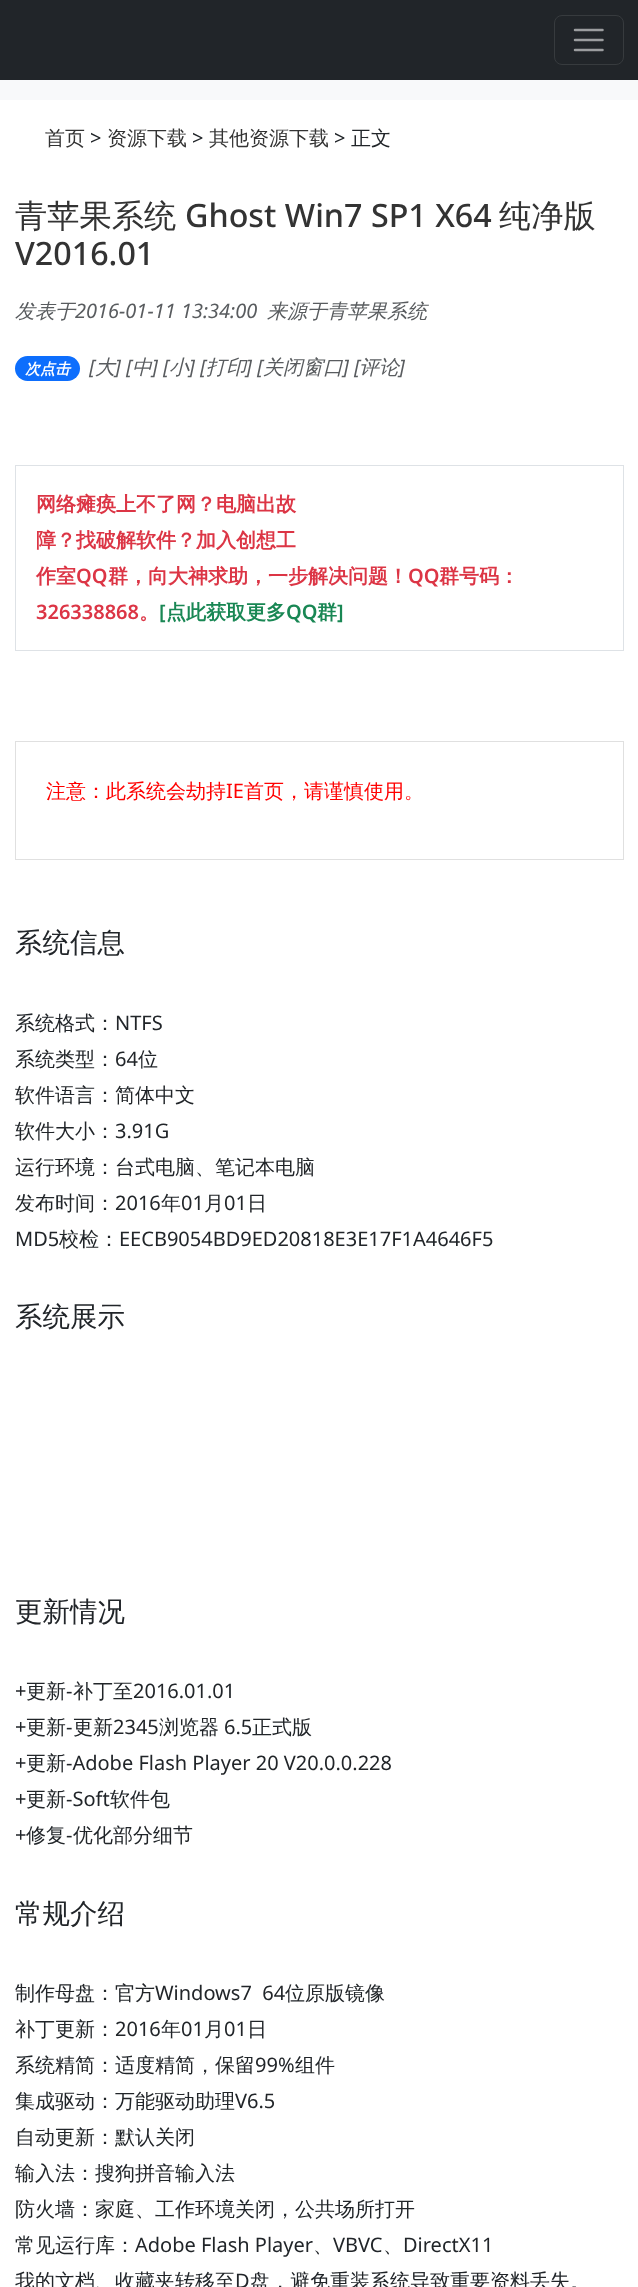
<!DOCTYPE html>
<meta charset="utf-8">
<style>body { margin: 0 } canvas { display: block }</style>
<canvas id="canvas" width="638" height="2287"></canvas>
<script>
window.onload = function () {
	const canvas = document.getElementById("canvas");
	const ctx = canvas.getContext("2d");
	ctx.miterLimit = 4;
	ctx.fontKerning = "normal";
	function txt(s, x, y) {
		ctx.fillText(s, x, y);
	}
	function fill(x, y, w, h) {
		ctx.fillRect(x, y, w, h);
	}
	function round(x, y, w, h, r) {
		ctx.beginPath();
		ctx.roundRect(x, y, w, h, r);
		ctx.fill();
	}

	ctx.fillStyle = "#FFFFFF";
	fill(0, 0, 638, 2287);
	ctx.fillStyle = "#212529";
	fill(0, 0, 638, 80);
	ctx.beginPath();
	ctx.roundRect(554.5, 15.5, 69, 49, 7.5);
	ctx.strokeStyle = "#373B3E";
	ctx.stroke();
	ctx.beginPath();
	ctx.moveTo(575, 30);
	ctx.lineTo(602.5, 30);
	ctx.moveTo(575, 40);
	ctx.lineTo(602.5, 40);
	ctx.moveTo(575, 50);
	ctx.lineTo(602.5, 50);
	ctx.strokeStyle = "#9B9D9F";
	ctx.lineWidth = 2.5;
	ctx.lineCap = "round";
	ctx.stroke();
	ctx.fillStyle = "#F8F9FA";
	fill(0, 80, 638, 20);
	ctx.fillStyle = "#0D6EFD";
	round(15, 356, 65, 25, 12.5);
	ctx.strokeStyle = "#DEE2E6";
	ctx.lineWidth = 1;
	ctx.strokeRect(15.5, 465.5, 608, 185);
	ctx.strokeStyle = "#E0E0E0";
	ctx.strokeRect(15.5, 741.5, 608, 118);
	ctx.font = "500 20px WenQuanYi Zen Hei";
	ctx.fillStyle = "#333333";
	txt("首页", 45, 145);
	ctx.font = "20px Noto Sans";
	ctx.fillStyle = "#212529";
	txt(">", 90, 145);
	ctx.font = "500 20px WenQuanYi Zen Hei";
	ctx.fillStyle = "#333333";
	txt("资源下载", 107, 145);
	ctx.font = "20px Noto Sans";
	ctx.fillStyle = "#212529";
	txt(">", 192, 145);
	ctx.font = "500 20px WenQuanYi Zen Hei";
	ctx.fillStyle = "#333333";
	txt("其他资源下载", 209, 145);
	ctx.font = "20px Noto Sans";
	ctx.fillStyle = "#212529";
	txt(">", 334, 145);
	ctx.font = "500 20px WenQuanYi Zen Hei";
	txt("正文", 351, 145);
	ctx.font = "500 32.25px WenQuanYi Zen Hei";
	ctx.fillStyle = "#333333";
	txt("青苹果系统", 15, 227);
	ctx.font = "500 32.25px Noto Sans";
	txt("Ghost Win7 SP1 X64", 185, 227);
	ctx.font = "500 32.25px WenQuanYi Zen Hei";
	txt("纯净版", 499, 227);
	ctx.font = "500 32.25px Noto Sans";
	txt("V2016.01", 15, 265);
	ctx.font = "italic 500 20px WenQuanYi Zen Hei";
	ctx.fillStyle = "#595C5F";
	txt("发表于", 15, 318);
	ctx.font = "italic 20px Noto Sans";
	txt("2016-01-11 13:34:00", 75, 318);
	ctx.font = "italic 500 20px WenQuanYi Zen Hei";
	txt("来源于青苹果系统", 267, 318);
	ctx.font = "italic bold 15px WenQuanYi Zen Hei";
	ctx.fillStyle = "#FFFFFF";
	txt("次点击", 25, 374);
	ctx.font = "italic 20px Noto Sans";
	ctx.fillStyle = "#595C5F";
	txt("[", 89, 374);
	ctx.font = "italic 500 20px WenQuanYi Zen Hei";
	txt("大", 95, 374);
	ctx.font = "italic 20px Noto Sans";
	txt("] [", 115, 374);
	ctx.font = "italic 500 20px WenQuanYi Zen Hei";
	txt("中", 132, 374);
	ctx.font = "italic 20px Noto Sans";
	txt("] [", 152, 374);
	ctx.font = "italic 500 20px WenQuanYi Zen Hei";
	txt("小", 169, 374);
	ctx.font = "italic 20px Noto Sans";
	txt("] [", 189, 374);
	ctx.font = "italic 500 20px WenQuanYi Zen Hei";
	txt("打印", 206, 374);
	ctx.font = "italic 20px Noto Sans";
	txt("] [", 246, 374);
	ctx.font = "italic 500 20px WenQuanYi Zen Hei";
	txt("关闭窗口", 263, 374);
	ctx.font = "italic 20px Noto Sans";
	txt("] [", 343, 374);
	ctx.font = "italic 500 20px WenQuanYi Zen Hei";
	txt("评论", 359, 374);
	ctx.font = "italic 20px Noto Sans";
	txt("]", 399, 374);
	ctx.font = "bold 20px WenQuanYi Zen Hei";
	ctx.fillStyle = "#DC3545";
	txt("网络瘫痪上不了网？电脑出故", 36, 511);
	txt("障？找破解软件？加入创想工", 36, 547);
	txt("作室", 36, 583);
	ctx.font = "600 20px Noto Sans";
	txt("QQ", 76, 583);
	ctx.font = "bold 20px WenQuanYi Zen Hei";
	txt("群，向大神求助，一步解决问题！", 108, 583);
	ctx.font = "600 20px Noto Sans";
	txt("QQ", 408, 583);
	ctx.font = "bold 20px WenQuanYi Zen Hei";
	txt("群号码：", 439, 583);
	ctx.font = "600 20px Noto Sans";
	txt("326338868", 36, 619);
	ctx.font = "bold 20px WenQuanYi Zen Hei";
	txt("。", 139, 619);
	ctx.font = "600 20px Noto Sans";
	ctx.fillStyle = "#198754";
	txt("[", 159, 619);
	ctx.font = "bold 20px WenQuanYi Zen Hei";
	txt("点此获取更多", 166, 619);
	ctx.font = "600 20px Noto Sans";
	txt("QQ", 286, 619);
	ctx.font = "bold 20px WenQuanYi Zen Hei";
	txt("群", 317, 619);
	ctx.font = "600 20px Noto Sans";
	txt("]", 337, 619);
	ctx.font = "500 20px WenQuanYi Zen Hei";
	ctx.fillStyle = "#FF0000";
	txt("注意：此系统会劫持", 46, 798);
	ctx.font = "20px Noto Sans";
	txt("IE", 226, 798);
	ctx.font = "500 20px WenQuanYi Zen Hei";
	txt("首页，请谨慎使用。", 244, 798);
	ctx.font = "500 27.5px WenQuanYi Zen Hei";
	ctx.fillStyle = "#212529";
	txt("系统信息", 15, 952);
	ctx.font = "500 20px WenQuanYi Zen Hei";
	txt("系统格式：", 15, 1030);
	ctx.font = "20px Noto Sans";
	txt("NTFS", 115, 1030);
	ctx.font = "500 20px WenQuanYi Zen Hei";
	txt("系统类型：", 15, 1066);
	ctx.font = "20px Noto Sans";
	txt("64", 115, 1066);
	ctx.font = "500 20px WenQuanYi Zen Hei";
	txt("位", 138, 1066);
	txt("软件语言：简体中文", 15, 1102);
	txt("软件大小：", 15, 1138);
	ctx.font = "20px Noto Sans";
	txt("3.91G", 115, 1138);
	ctx.font = "500 20px WenQuanYi Zen Hei";
	txt("运行环境：台式电脑、笔记本电脑", 15, 1174);
	txt("发布时间：", 15, 1210);
	ctx.font = "20px Noto Sans";
	txt("2016", 115, 1210);
	ctx.font = "500 20px WenQuanYi Zen Hei";
	txt("年", 161, 1210);
	ctx.font = "20px Noto Sans";
	txt("01", 181, 1210);
	ctx.font = "500 20px WenQuanYi Zen Hei";
	txt("月", 204, 1210);
	ctx.font = "20px Noto Sans";
	txt("01", 224, 1210);
	ctx.font = "500 20px WenQuanYi Zen Hei";
	txt("日", 247, 1210);
	ctx.font = "20px Noto Sans";
	txt("MD5", 15, 1246);
	ctx.font = "500 20px WenQuanYi Zen Hei";
	txt("校检：", 59, 1246);
	ctx.font = "20px Noto Sans";
	txt("EECB9054BD9ED20818E3E17F1A4646F5", 119, 1246);
	ctx.font = "500 27.5px WenQuanYi Zen Hei";
	txt("系统展示", 15, 1326);
	txt("更新情况", 15, 1621);
	ctx.font = "20px Noto Sans";
	txt("+", 15, 1698);
	ctx.font = "500 20px WenQuanYi Zen Hei";
	txt("更新", 26, 1698);
	ctx.font = "20px Noto Sans";
	txt("-", 66, 1698);
	ctx.font = "500 20px WenQuanYi Zen Hei";
	txt("补丁至", 73, 1698);
	ctx.font = "20px Noto Sans";
	txt("2016.01.01", 133, 1698);
	txt("+", 15, 1734);
	ctx.font = "500 20px WenQuanYi Zen Hei";
	txt("更新", 26, 1734);
	ctx.font = "20px Noto Sans";
	txt("-", 66, 1734);
	ctx.font = "500 20px WenQuanYi Zen Hei";
	txt("更新", 73, 1734);
	ctx.font = "20px Noto Sans";
	txt("2345", 113, 1734);
	ctx.font = "500 20px WenQuanYi Zen Hei";
	txt("浏览器", 159, 1734);
	ctx.font = "20px Noto Sans";
	txt("6.5", 224, 1734);
	ctx.font = "500 20px WenQuanYi Zen Hei";
	txt("正式版", 252, 1734);
	ctx.font = "20px Noto Sans";
	txt("+", 15, 1770);
	ctx.font = "500 20px WenQuanYi Zen Hei";
	txt("更新", 26, 1770);
	ctx.font = "20px Noto Sans";
	txt("-Adobe Flash Player 20 V20.0.0.228", 66, 1770);
	txt("+", 15, 1806);
	ctx.font = "500 20px WenQuanYi Zen Hei";
	txt("更新", 26, 1806);
	ctx.font = "20px Noto Sans";
	txt("-Soft", 66, 1806);
	ctx.font = "500 20px WenQuanYi Zen Hei";
	txt("软件包", 110, 1806);
	ctx.font = "20px Noto Sans";
	txt("+", 15, 1842);
	ctx.font = "500 20px WenQuanYi Zen Hei";
	txt("修复", 26, 1842);
	ctx.font = "20px Noto Sans";
	txt("-", 66, 1842);
	ctx.font = "500 20px WenQuanYi Zen Hei";
	txt("优化部分细节", 73, 1842);
	ctx.font = "500 27.5px WenQuanYi Zen Hei";
	txt("常规介绍", 15, 1923);
	ctx.font = "500 20px WenQuanYi Zen Hei";
	txt("制作母盘：官方", 15, 2000);
	ctx.font = "20px Noto Sans";
	txt("Windows7  64", 155, 2000);
	ctx.font = "500 20px WenQuanYi Zen Hei";
	txt("位原版镜像", 285, 2000);
	txt("补丁更新：", 15, 2036);
	ctx.font = "20px Noto Sans";
	txt("2016", 115, 2036);
	ctx.font = "500 20px WenQuanYi Zen Hei";
	txt("年", 161, 2036);
	ctx.font = "20px Noto Sans";
	txt("01", 181, 2036);
	ctx.font = "500 20px WenQuanYi Zen Hei";
	txt("月", 204, 2036);
	ctx.font = "20px Noto Sans";
	txt("01", 224, 2036);
	ctx.font = "500 20px WenQuanYi Zen Hei";
	txt("日", 247, 2036);
	txt("系统精简：适度精简，保留", 15, 2072);
	ctx.font = "20px Noto Sans";
	txt("99%", 255, 2072);
	ctx.font = "500 20px WenQuanYi Zen Hei";
	txt("组件", 295, 2072);
	txt("集成驱动：万能驱动助理", 15, 2108);
	ctx.font = "20px Noto Sans";
	txt("V6.5", 235, 2108);
	ctx.font = "500 20px WenQuanYi Zen Hei";
	txt("自动更新：默认关闭", 15, 2144);
	txt("输入法：搜狗拼音输入法", 15, 2180);
	txt("防火墙：家庭、工作环境关闭，公共场所打开", 15, 2216);
	txt("常见运行库：", 15, 2252);
	ctx.font = "20px Noto Sans";
	txt("Adobe Flash Player", 135, 2252);
	ctx.font = "500 20px WenQuanYi Zen Hei";
	txt("、", 313, 2252);
	ctx.font = "20px Noto Sans";
	txt("VBVC", 333, 2252);
	ctx.font = "500 20px WenQuanYi Zen Hei";
	txt("、", 383, 2252);
	ctx.font = "20px Noto Sans";
	txt("DirectX11", 403, 2252);
	ctx.font = "500 20px WenQuanYi Zen Hei";
	txt("我的文档、收藏夹转移至", 15, 2288);
	ctx.font = "20px Noto Sans";
	txt("D", 235, 2288);
	ctx.font = "500 20px WenQuanYi Zen Hei";
	txt("盘，避免重装系统导致重要资料丢失。", 250, 2288);
};
</script>
